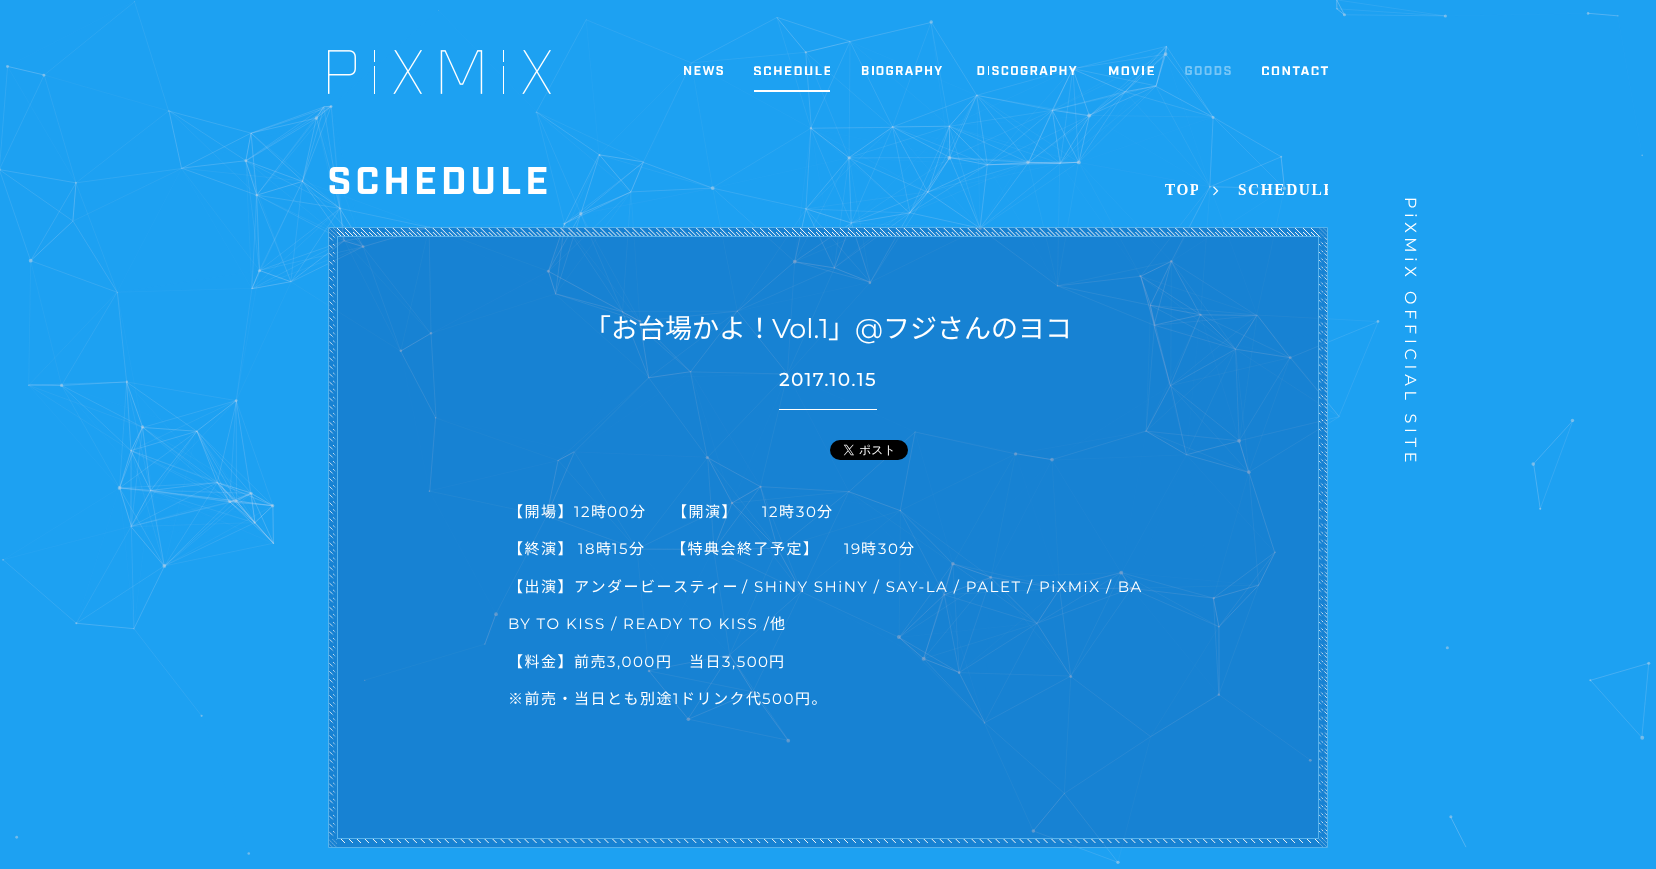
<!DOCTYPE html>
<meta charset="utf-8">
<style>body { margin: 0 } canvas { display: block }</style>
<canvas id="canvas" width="1656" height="869"></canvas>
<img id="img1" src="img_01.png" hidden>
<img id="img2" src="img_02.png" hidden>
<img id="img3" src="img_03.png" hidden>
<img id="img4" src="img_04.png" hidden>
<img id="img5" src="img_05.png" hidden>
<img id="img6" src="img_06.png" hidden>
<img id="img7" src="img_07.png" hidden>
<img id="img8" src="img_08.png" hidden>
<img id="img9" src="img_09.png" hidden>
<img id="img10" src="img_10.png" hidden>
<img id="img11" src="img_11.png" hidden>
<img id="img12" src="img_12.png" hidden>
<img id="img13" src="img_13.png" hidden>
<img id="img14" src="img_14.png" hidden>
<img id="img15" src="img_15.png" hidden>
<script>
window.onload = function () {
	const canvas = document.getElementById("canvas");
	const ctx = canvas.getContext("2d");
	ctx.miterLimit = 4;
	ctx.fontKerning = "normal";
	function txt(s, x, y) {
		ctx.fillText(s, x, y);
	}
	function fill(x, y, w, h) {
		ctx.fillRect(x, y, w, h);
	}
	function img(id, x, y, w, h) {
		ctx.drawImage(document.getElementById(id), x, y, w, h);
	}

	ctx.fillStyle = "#1DA1F2";
	fill(0, 0, 1656, 869);
	img("img1", 0, 0, 1651, 864);
	img("img2", 328, 50, 223, 44);
	img("img3", 684, 66, 39, 9);
	img("img4", 754, 66, 76, 9);
	ctx.fillStyle = "#FFFFFF";
	fill(754, 90, 76, 2);
	img("img5", 861, 66, 81, 9);
	img("img6", 977, 66, 100, 9);
	img("img7", 1109, 66, 45, 9);
	img("img8", 1185, 66, 46, 9);
	img("img9", 1262, 66, 66, 9);
	img("img10", 329, 167, 218, 27);
	img("img11", 1165, 184, 33, 11);
	img("img12", 1213, 186, 6, 10);
	img("img13", 1238, 184, 90, 11);
	ctx.fillStyle = "rgba(0, 9, 89, 0.2)";
	ctx.beginPath();
	ctx.rect(328.5, 227.5, 999, 620);
	ctx.fill();
	ctx.strokeStyle = "#57B3ED";
	ctx.stroke();
	img("img14", 329, 228, 998, 619);
	ctx.strokeRect(337.5, 236.5, 981, 602);
	ctx.fillStyle = "#FFFFFF";
	fill(779, 409, 98, 1);
	img("img15", 830, 440, 78, 20);
	ctx.font = "27px Noto Sans JP";
	txt("「お台場かよ！", 584, 338);
	ctx.font = "100 27px Montserrat";
	txt("Vol.1", 772, 338);
	ctx.font = "27px Noto Sans JP";
	txt("」", 828, 338);
	ctx.font = "100 27px Montserrat";
	txt("@", 855, 338);
	ctx.font = "27px Noto Sans JP";
	txt("フジさんのヨコ", 883, 338);
	ctx.letterSpacing = "1.75px";
	ctx.font = "bold 18px Montserrat";
	txt("2017.10.15", 779, 386);
	ctx.letterSpacing = "1.5px";
	ctx.font = "15px Noto Sans JP";
	txt("【開場】", 508, 517);
	ctx.font = "100 15px Montserrat";
	txt("12", 574, 517);
	ctx.font = "15px Noto Sans JP";
	txt("時", 591, 517);
	ctx.font = "100 15px Montserrat";
	txt("00", 607, 517);
	ctx.font = "15px Noto Sans JP";
	txt("分　　【開演】", 630, 517);
	ctx.font = "100 15px Montserrat";
	txt("12", 762, 517);
	ctx.font = "15px Noto Sans JP";
	txt("時", 779, 517);
	ctx.font = "100 15px Montserrat";
	txt("30", 796, 517);
	ctx.font = "15px Noto Sans JP";
	txt("分", 817, 517);
	txt("【終演】", 508, 554);
	ctx.font = "100 15px Montserrat";
	txt("18", 578, 554);
	ctx.font = "15px Noto Sans JP";
	txt("時", 596, 554);
	ctx.font = "100 15px Montserrat";
	txt("15", 612, 554);
	ctx.font = "15px Noto Sans JP";
	txt("分　　【特典会終了予定】", 629, 554);
	ctx.font = "100 15px Montserrat";
	txt("19", 844, 554);
	ctx.font = "15px Noto Sans JP";
	txt("時", 861, 554);
	ctx.font = "100 15px Montserrat";
	txt("30", 878, 554);
	ctx.font = "15px Noto Sans JP";
	txt("分", 899, 554);
	txt("【出演】アンダービースティー", 508, 592);
	ctx.font = "100 15px Montserrat";
	txt("/ SHiNY SHiNY / SAY-LA / PALET / PiXMiX / BA", 742, 592);
	txt("BY TO KISS / READY TO KISS /", 508, 629);
	ctx.font = "15px Noto Sans JP";
	txt("他", 770, 629);
	txt("【料金】前売", 508, 667);
	ctx.font = "100 15px Montserrat";
	txt("3,000", 607, 667);
	ctx.font = "15px Noto Sans JP";
	txt("円　当日", 656, 667);
	ctx.font = "100 15px Montserrat";
	txt("3,500", 722, 667);
	ctx.font = "15px Noto Sans JP";
	txt("円", 769, 667);
	txt("※前売・当日とも別途", 508, 704);
	ctx.font = "100 15px Montserrat";
	txt("1", 673, 704);
	ctx.font = "15px Noto Sans JP";
	txt("ドリンク代", 680, 704);
	ctx.font = "100 15px Montserrat";
	txt("500", 762, 704);
	ctx.font = "15px Noto Sans JP";
	txt("円。", 795, 704);
	ctx.letterSpacing = "4.75px";
	ctx.font = "100 16px Montserrat";
	ctx.save();
	ctx.translate(1405, 197);
	ctx.rotate(90 * Math.PI / 180);
	ctx.fillText("PiXMiX", 0, 0);
	ctx.restore();
	ctx.save();
	ctx.translate(1405, 291);
	ctx.rotate(90 * Math.PI / 180);
	ctx.fillText("OFFICIAL SITE", 0, 0);
	ctx.restore();
};
</script>
